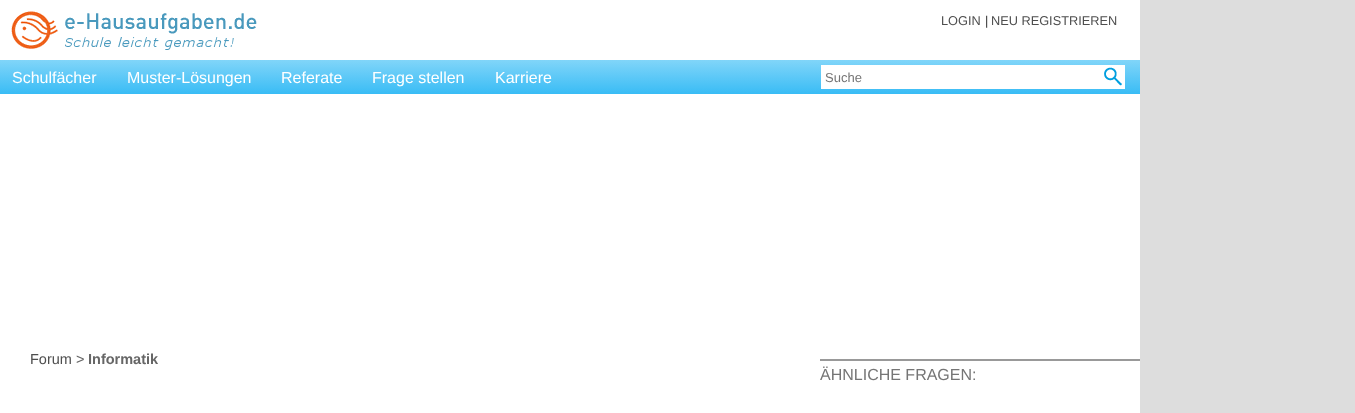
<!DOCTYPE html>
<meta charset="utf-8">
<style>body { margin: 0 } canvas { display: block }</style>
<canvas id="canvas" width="1355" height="413"></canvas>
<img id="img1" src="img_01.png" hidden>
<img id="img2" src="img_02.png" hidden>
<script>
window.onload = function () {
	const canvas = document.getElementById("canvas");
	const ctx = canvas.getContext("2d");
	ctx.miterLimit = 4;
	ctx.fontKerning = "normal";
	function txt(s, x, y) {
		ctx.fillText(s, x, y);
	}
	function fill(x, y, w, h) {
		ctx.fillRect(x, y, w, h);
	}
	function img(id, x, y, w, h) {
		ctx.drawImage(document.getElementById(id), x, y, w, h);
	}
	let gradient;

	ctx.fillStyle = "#DDDDDD";
	fill(0, 0, 1355, 413);
	ctx.fillStyle = "#FFFFFF";
	fill(0, 0, 1140, 413);
	img("img1", 11, 11, 246, 39);
	gradient = ctx.createLinearGradient(570, 60, 570, 94);
	gradient.addColorStop(0, "#81D5F9");
	gradient.addColorStop(1, "#39BCF5");
	ctx.fillStyle = gradient;
	fill(0, 60, 1140, 34);
	ctx.fillStyle = "#FFFFFF";
	fill(821, 65, 280, 24);
	img("img2", 1101, 65, 24, 24);
	ctx.fillStyle = "#999999";
	fill(820, 359, 320, 2);
	ctx.font = "12.75px Liberation Sans";
	ctx.fillStyle = "#4E4E4E";
	txt("LOGIN", 941, 25);
	ctx.fillStyle = "#333333";
	txt("|", 985, 25);
	ctx.fillStyle = "#4E4E4E";
	txt("NEU REGISTRIEREN", 991, 25);
	ctx.font = "16px Liberation Sans";
	ctx.fillStyle = "#FFFFFF";
	txt("Schulfächer", 12, 83);
	txt("Muster-Lösungen", 127, 83);
	txt("Referate", 281, 83);
	txt("Frage stellen", 372, 83);
	txt("Karriere", 495, 83);
	ctx.font = "13px Liberation Sans";
	ctx.fillStyle = "#757575";
	txt("Suche", 825, 82);
	ctx.font = "14.5px Liberation Sans";
	ctx.fillStyle = "#4E4E4E";
	txt("Forum", 30, 364);
	ctx.fillStyle = "#666666";
	txt(">", 76, 364);
	ctx.font = "bold 14.5px Liberation Sans";
	txt("Informatik", 88, 364);
	ctx.font = "16px Liberation Sans";
	ctx.fillStyle = "#757575";
	txt("ÄHNLICHE FRAGEN:", 820, 380);
};
</script>
